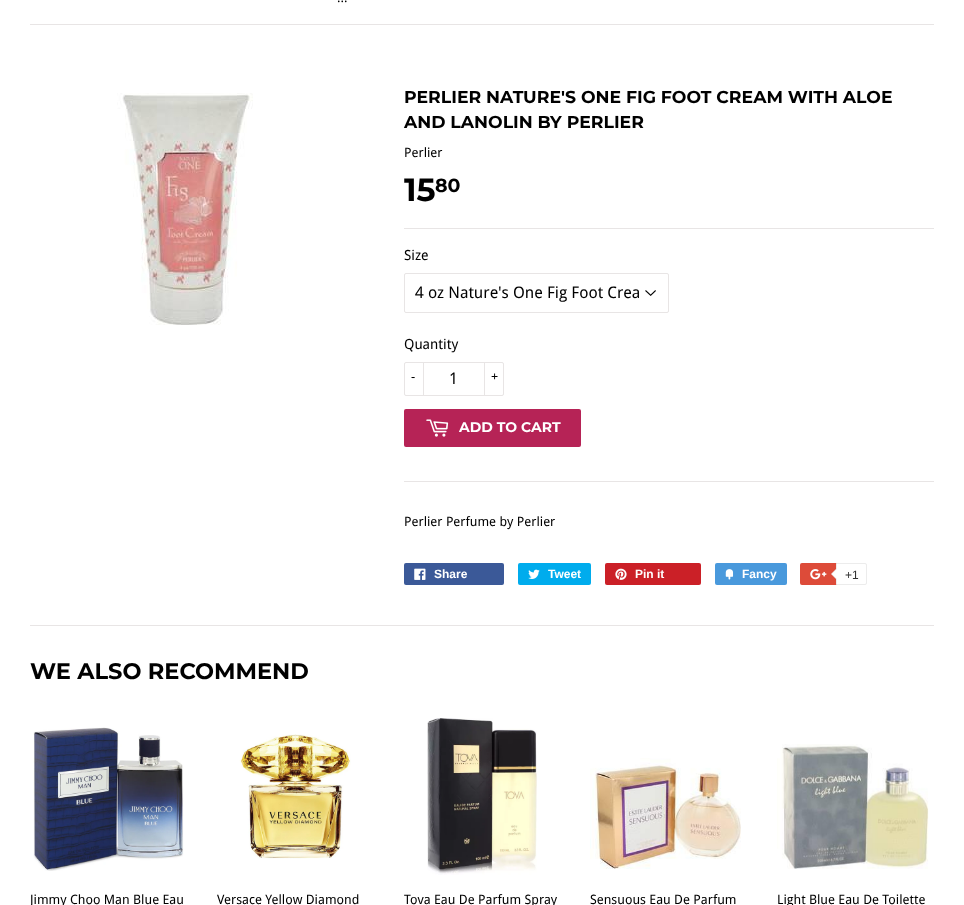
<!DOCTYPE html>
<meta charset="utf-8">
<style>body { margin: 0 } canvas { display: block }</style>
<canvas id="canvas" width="964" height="905"></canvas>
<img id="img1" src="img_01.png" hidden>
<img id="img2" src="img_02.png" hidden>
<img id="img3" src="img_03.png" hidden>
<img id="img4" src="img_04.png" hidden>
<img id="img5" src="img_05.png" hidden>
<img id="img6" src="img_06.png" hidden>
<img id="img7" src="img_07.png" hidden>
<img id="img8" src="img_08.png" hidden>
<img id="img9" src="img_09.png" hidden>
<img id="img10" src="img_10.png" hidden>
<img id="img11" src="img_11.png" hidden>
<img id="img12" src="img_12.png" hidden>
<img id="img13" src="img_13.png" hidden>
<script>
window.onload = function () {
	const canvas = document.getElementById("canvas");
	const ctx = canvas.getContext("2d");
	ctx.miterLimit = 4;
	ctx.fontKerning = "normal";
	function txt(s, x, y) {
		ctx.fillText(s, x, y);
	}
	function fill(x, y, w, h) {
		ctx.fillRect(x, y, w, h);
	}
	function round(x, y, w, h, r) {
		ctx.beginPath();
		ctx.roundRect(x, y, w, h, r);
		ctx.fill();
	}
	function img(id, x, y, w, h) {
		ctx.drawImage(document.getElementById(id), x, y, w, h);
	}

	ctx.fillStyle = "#FFFFFF";
	fill(0, 0, 964, 905);
	ctx.fillStyle = "#E8E5E5";
	fill(30, 24, 904, 1);
	img("img1", 117, 93, 136, 232);
	fill(404, 228, 530, 1);
	img("img2", 645, 290, 11, 6);
	ctx.beginPath();
	ctx.roundRect(404.5, 273.5, 264, 39, 1.5);
	ctx.strokeStyle = "#E8E5E5";
	ctx.stroke();
	ctx.beginPath();
	ctx.roundRect(404.5, 362.5, 99, 33, 1.5);
	ctx.stroke();
	fill(423, 362, 1, 34);
	fill(484, 362, 1, 34);
	ctx.fillStyle = "#B62356";
	round(404, 409, 177, 38, 2);
	img("img3", 426, 419, 23, 18);
	ctx.fillStyle = "#E8E5E5";
	fill(404, 481, 530, 1);
	ctx.fillStyle = "#3B5998";
	round(404, 563, 100, 22, 2);
	img("img4", 414, 568, 12, 12);
	ctx.fillStyle = "#00ACED";
	round(518, 563, 73, 22, 2);
	img("img5", 528, 569, 12, 10);
	ctx.fillStyle = "#CB2027";
	round(605, 563, 96, 22, 2);
	img("img6", 615, 568, 12, 12);
	ctx.fillStyle = "#4999DC";
	round(715, 563, 72, 22, 2);
	img("img7", 725, 569, 9, 11);
	ctx.fillStyle = "#DD4B39";
	round(800, 563, 65, 22, 2);
	img("img8", 810, 569, 17, 11);
	ctx.fillStyle = "#FFFFFF";
	ctx.beginPath();
	ctx.roundRect(836.5, 563.5, 30, 21, [0, 1.5, 1.5, 0]);
	ctx.fill();
	ctx.strokeStyle = "#ECECEC";
	ctx.stroke();
	ctx.fillStyle = "#ECECEC";
	ctx.beginPath();
	ctx.moveTo(837, 568);
	ctx.lineTo(837, 580);
	ctx.lineTo(831, 574);
	ctx.closePath();
	ctx.fill();
	ctx.fillStyle = "#FFFFFF";
	ctx.beginPath();
	ctx.moveTo(838, 568);
	ctx.lineTo(838, 580);
	ctx.lineTo(832, 574);
	ctx.closePath();
	ctx.fill();
	ctx.fillStyle = "#E8E5E5";
	fill(30, 625, 904, 1);
	img("img9", 33, 727, 151, 144);
	img("img10", 239, 734, 112, 125);
	img("img11", 427, 718, 110, 157);
	img("img12", 590, 758, 151, 111);
	img("img13", 777, 744, 152, 125);
	ctx.font = "13px Droid Sans";
	ctx.fillStyle = "#000000";
	txt("...", 337, 2);
	ctx.font = "100 17.3px Montserrat";
	txt("PERLIER NATURE'S ONE FIG FOOT CREAM WITH ALOE", 404, 103);
	txt("AND LANOLIN BY PERLIER", 404, 128);
	ctx.font = "13px Droid Sans";
	txt("Perlier", 404, 157);
	ctx.font = "100 32px Montserrat";
	txt("15", 404, 201);
	ctx.font = "100 19px Montserrat";
	txt("80", 435, 192);
	ctx.font = "14px Droid Sans";
	txt("Size", 404, 260);
	ctx.font = "16px Droid Sans";
	txt("4 oz Nature's One Fig Foot Crea", 415, 298);
	ctx.font = "14px Droid Sans";
	txt("Quantity", 404, 349);
	ctx.font = "13px Droid Sans";
	txt("-", 411, 381);
	ctx.font = "16px Droid Sans";
	txt("1", 449, 384);
	ctx.font = "13px Droid Sans";
	txt("+", 491, 381);
	ctx.font = "100 14px Montserrat";
	ctx.fillStyle = "#FFFFFF";
	txt("ADD TO CART", 459, 432);
	ctx.font = "13px Droid Sans";
	ctx.fillStyle = "#000000";
	txt("Perlier Perfume by Perlier", 404, 526);
	ctx.font = "bold 12px Liberation Sans";
	ctx.fillStyle = "#FFFFFF";
	txt("Share", 434, 578);
	txt("Tweet", 548, 578);
	txt("Pin it", 635, 578);
	txt("Fancy", 742, 578);
	ctx.font = "12px Liberation Sans";
	ctx.fillStyle = "#333333";
	txt("+1", 845, 579);
	ctx.font = "100 22.5px Montserrat";
	ctx.fillStyle = "#000000";
	txt("WE ALSO RECOMMEND", 30, 679);
	ctx.font = "13px Droid Sans";
	txt("Jimmy Choo Man Blue Eau", 30, 904);
	txt("Versace Yellow Diamond", 217, 904);
	txt("Tova Eau De Parfum Spray", 404, 904);
	txt("Sensuous Eau De Parfum", 590, 904);
	txt("Light Blue Eau De Toilette", 777, 904);
};
</script>
